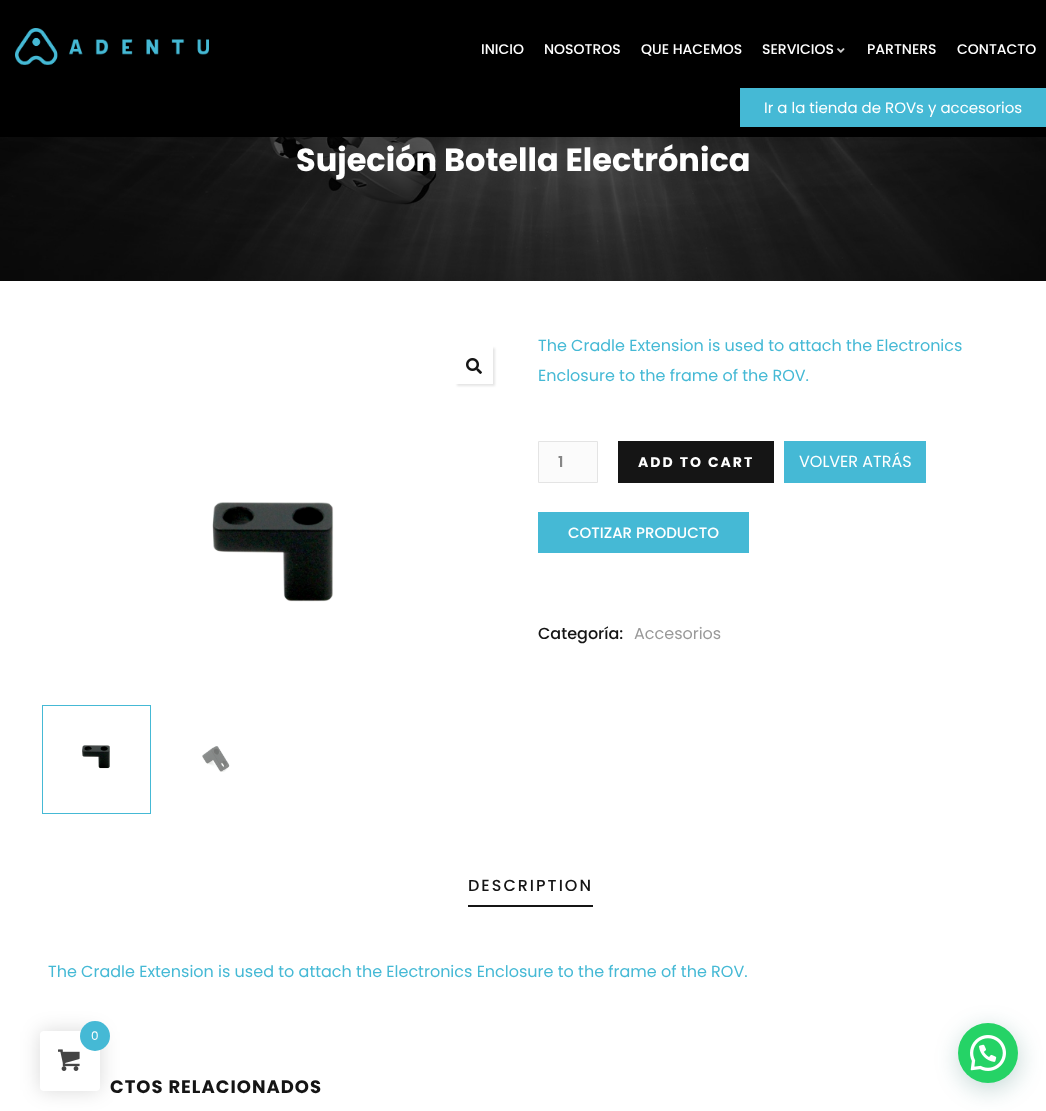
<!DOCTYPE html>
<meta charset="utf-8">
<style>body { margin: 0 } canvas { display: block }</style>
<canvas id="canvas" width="1046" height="1111"></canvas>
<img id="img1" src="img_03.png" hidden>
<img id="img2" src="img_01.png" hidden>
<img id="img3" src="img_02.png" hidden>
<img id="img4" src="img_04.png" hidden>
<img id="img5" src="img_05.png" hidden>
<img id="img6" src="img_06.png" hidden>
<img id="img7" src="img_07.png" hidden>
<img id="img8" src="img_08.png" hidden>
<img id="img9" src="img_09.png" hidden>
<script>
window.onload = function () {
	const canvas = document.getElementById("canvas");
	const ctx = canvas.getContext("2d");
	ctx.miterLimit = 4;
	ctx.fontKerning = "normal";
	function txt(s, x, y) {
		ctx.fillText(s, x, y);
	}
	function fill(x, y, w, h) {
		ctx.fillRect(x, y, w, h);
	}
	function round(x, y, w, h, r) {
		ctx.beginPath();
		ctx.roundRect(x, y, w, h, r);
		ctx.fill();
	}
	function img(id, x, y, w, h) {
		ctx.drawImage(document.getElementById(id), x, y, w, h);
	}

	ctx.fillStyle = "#FFFFFF";
	fill(0, 0, 1046, 1111);
	img("img1", 0, 137, 1046, 144);
	ctx.fillStyle = "rgba(0, 0, 0, 0.2)";
	ctx.filter = "blur(10px)";
	ctx.beginPath();
	ctx.rect(7, 9, 1032, 123);
	ctx.fill();
	ctx.filter = "none";
	ctx.fillStyle = "#000000";
	fill(0, 0, 1046, 137);
	img("img2", 15, 28, 194, 37);
	img("img3", 837, 48, 8, 5);
	ctx.fillStyle = "#45B9D5";
	fill(740, 88, 306, 39);
	ctx.save();
	ctx.beginPath();
	ctx.moveTo(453, 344);
	ctx.lineTo(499, 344);
	ctx.lineTo(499, 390);
	ctx.lineTo(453, 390);
	ctx.closePath();
	ctx.moveTo(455, 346);
	ctx.lineTo(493, 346);
	ctx.lineTo(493, 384);
	ctx.lineTo(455, 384);
	ctx.closePath();
	ctx.clip("evenodd");
	ctx.fillStyle = "rgba(0, 0, 0, 0.1)";
	ctx.filter = "blur(1px)";
	ctx.beginPath();
	ctx.rect(457, 348, 38, 38);
	ctx.fill();
	ctx.filter = "none";
	ctx.restore();
	img("img4", 466, 358, 16, 16);
	img("img5", 212, 502, 122, 100);
	ctx.strokeStyle = "#45B9D5";
	ctx.strokeRect(42.5, 705.5, 108, 108);
	img("img6", 82, 745, 28, 24);
	img("img7", 202, 746, 28, 26);
	ctx.fillStyle = "#FBFBFB";
	ctx.beginPath();
	ctx.rect(538.5, 441.5, 59, 41);
	ctx.fill();
	ctx.strokeStyle = "#E4E4E4";
	ctx.stroke();
	ctx.fillStyle = "#151515";
	fill(618, 441, 156, 42);
	ctx.fillStyle = "#45B9D5";
	fill(784, 441, 142, 42);
	fill(538, 512, 211, 41);
	ctx.fillStyle = "#151515";
	fill(468, 905, 125, 2);
	ctx.fillStyle = "rgba(0, 0, 0, 0.15)";
	ctx.filter = "blur(10px)";
	ctx.beginPath();
	ctx.roundRect(40, 1031, 60, 60, 4);
	ctx.fill();
	ctx.filter = "none";
	ctx.fillStyle = "#FFFFFF";
	round(40, 1031, 60, 60, 4);
	ctx.fillStyle = "#45B9D5";
	ctx.beginPath();
	ctx.arc(95, 1036, 15, 0, Math.PI * 2);
	ctx.fill();
	img("img8", 58, 1049, 22, 22);
	ctx.fillStyle = "rgba(7, 94, 84, 0.24)";
	ctx.filter = "blur(12px)";
	ctx.beginPath();
	ctx.roundRect(959, 1029, 60, 60, 30);
	ctx.fill();
	ctx.filter = "none";
	ctx.fillStyle = "#25D366";
	ctx.beginPath();
	ctx.arc(988, 1053, 30, 0, Math.PI * 2);
	ctx.fill();
	img("img9", 970, 1035, 36, 36);
	ctx.font = "500 14px Poppins";
	ctx.fillStyle = "#FFFFFF";
	txt("INICIO", 481, 54);
	txt("NOSOTROS", 544, 54);
	txt("QUE HACEMOS", 641, 54);
	txt("SERVICIOS", 762, 54);
	txt("PARTNERS", 867, 54);
	txt("CONTACTO", 957, 54);
	ctx.font = "15px Poppins";
	txt("Ir a la tienda de ROVs y accesorios", 764, 113);
	ctx.font = "bold 32px Poppins";
	txt("Sujeción Botella Electrónica", 296, 171);
	ctx.font = "16px Poppins";
	ctx.fillStyle = "#45B9D5";
	txt("The Cradle Extension is used to attach the Electronics", 538, 351);
	txt("Enclosure to the frame of the ROV.", 538, 381);
	ctx.font = "600 15px Poppins";
	ctx.fillStyle = "#868686";
	txt("1", 558, 467);
	ctx.letterSpacing = "2px";
	ctx.font = "bold 14px Poppins";
	ctx.fillStyle = "#FFFFFF";
	txt("ADD TO CART", 638, 467);
	ctx.letterSpacing = "0px";
	ctx.font = "16px Poppins";
	txt("VOLVER ATRÁS", 799, 467);
	ctx.font = "500 15px Poppins";
	txt("COTIZAR PRODUCTO", 568, 538);
	ctx.font = "500 16px Poppins";
	ctx.fillStyle = "#151515";
	txt("Categoría:", 538, 639);
	ctx.font = "16px Poppins";
	ctx.fillStyle = "#999999";
	txt("Accesorios", 634, 639);
	ctx.letterSpacing = "2px";
	ctx.font = "500 16px Poppins";
	ctx.fillStyle = "#151515";
	txt("DESCRIPTION", 468, 891);
	ctx.letterSpacing = "0px";
	ctx.font = "16px Poppins";
	ctx.fillStyle = "#45B9D5";
	txt("The Cradle Extension is used to attach the Electronics Enclosure to the frame of the ROV.", 48, 977);
	ctx.letterSpacing = "1px";
	ctx.font = "bold 18px Poppins";
	ctx.fillStyle = "#151515";
	txt("CTOS RELACIONADOS", 110, 1093);
	ctx.letterSpacing = "0px";
	ctx.font = "12px Poppins";
	ctx.fillStyle = "#FFFFFF";
	txt("0", 91, 1040);
};
</script>
